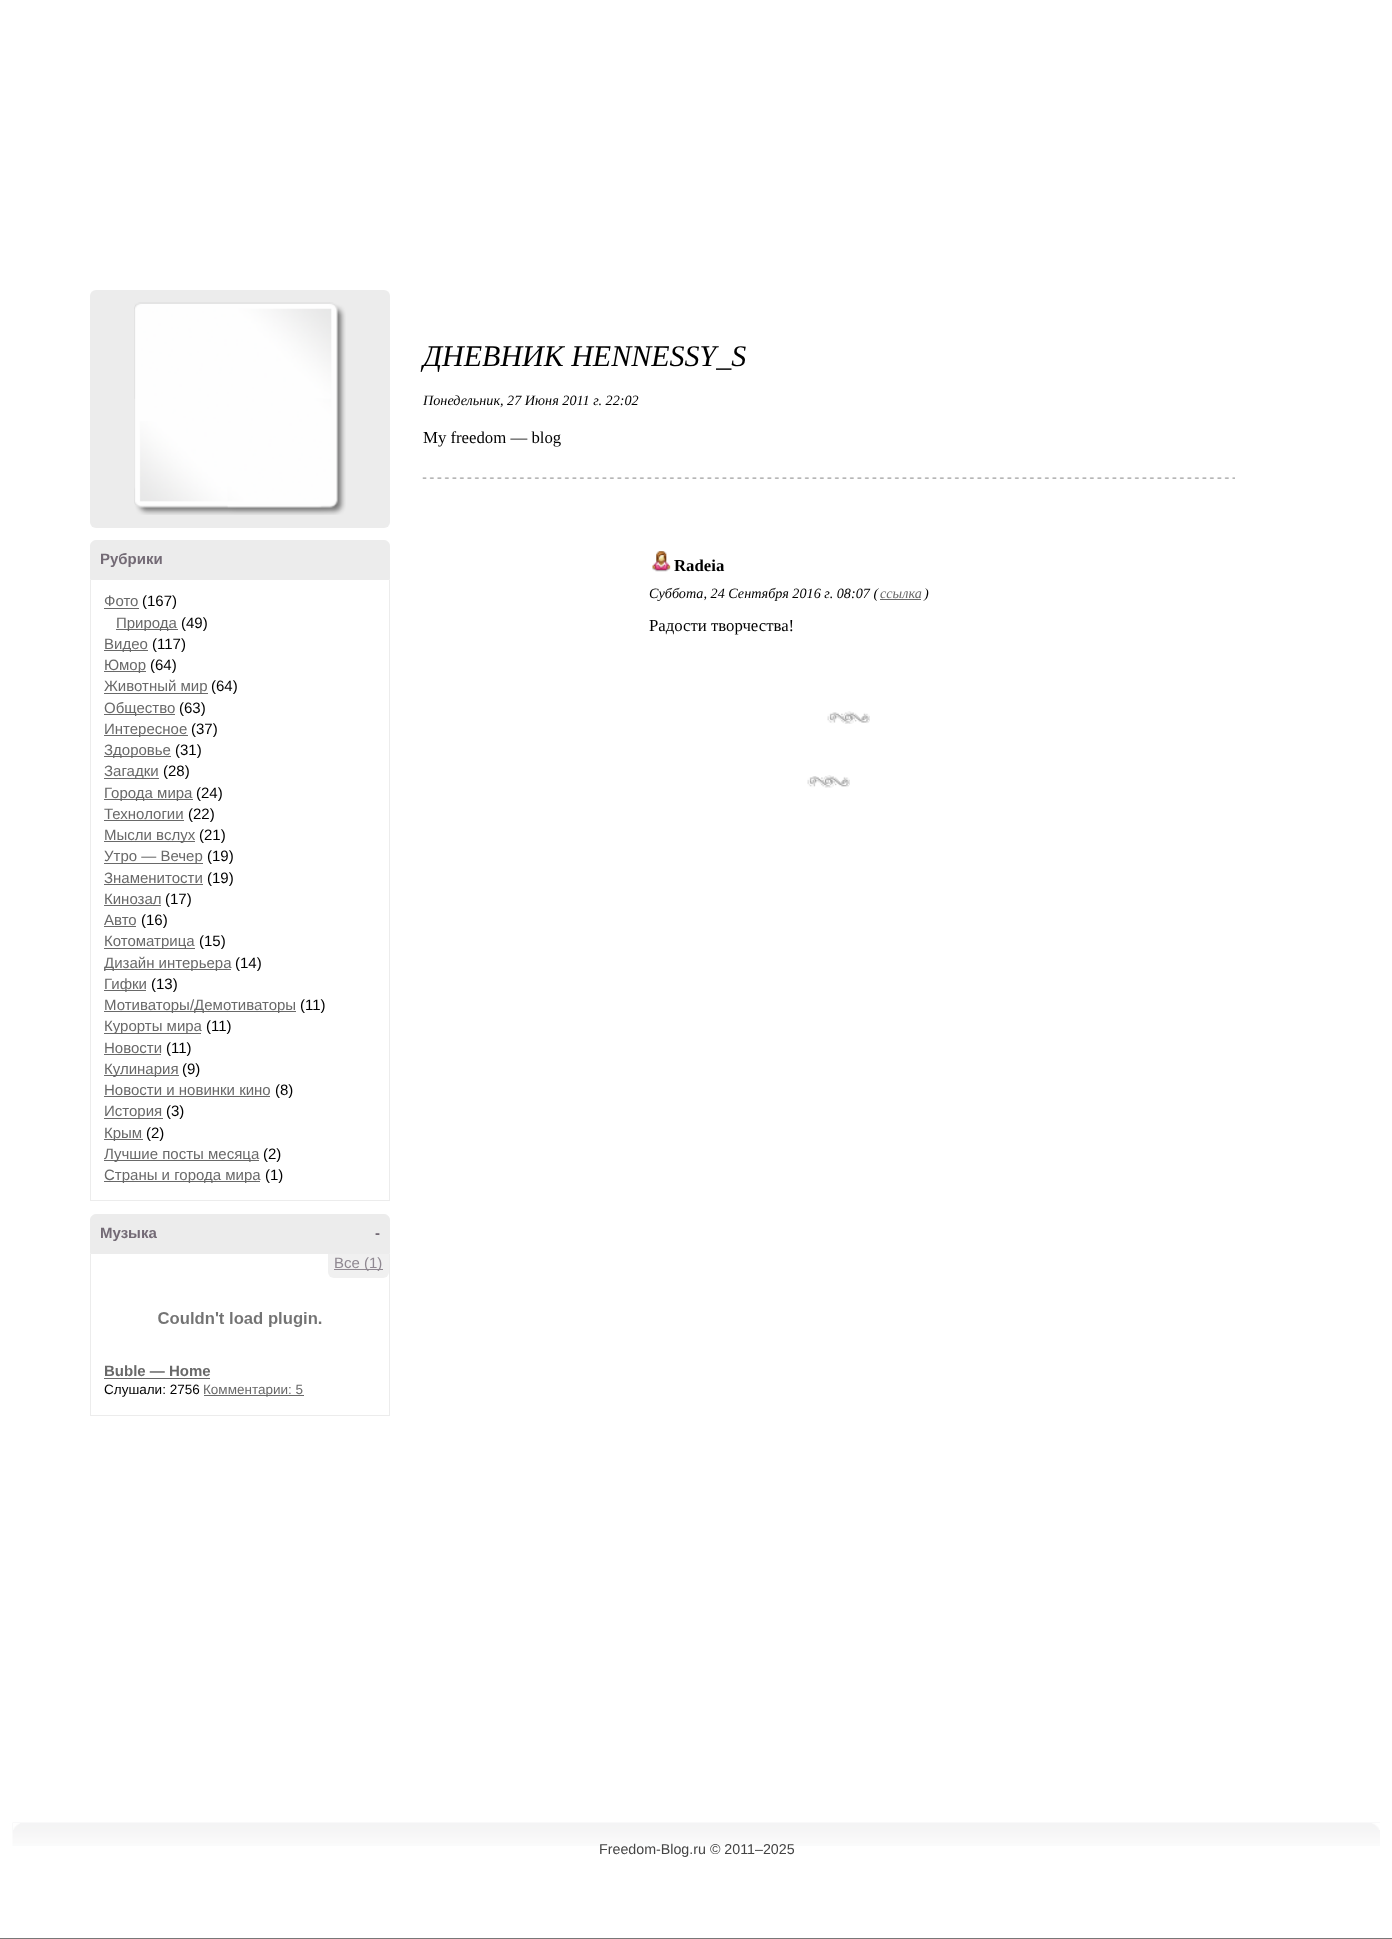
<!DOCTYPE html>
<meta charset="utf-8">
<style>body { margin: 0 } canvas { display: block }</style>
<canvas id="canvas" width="1392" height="1939"></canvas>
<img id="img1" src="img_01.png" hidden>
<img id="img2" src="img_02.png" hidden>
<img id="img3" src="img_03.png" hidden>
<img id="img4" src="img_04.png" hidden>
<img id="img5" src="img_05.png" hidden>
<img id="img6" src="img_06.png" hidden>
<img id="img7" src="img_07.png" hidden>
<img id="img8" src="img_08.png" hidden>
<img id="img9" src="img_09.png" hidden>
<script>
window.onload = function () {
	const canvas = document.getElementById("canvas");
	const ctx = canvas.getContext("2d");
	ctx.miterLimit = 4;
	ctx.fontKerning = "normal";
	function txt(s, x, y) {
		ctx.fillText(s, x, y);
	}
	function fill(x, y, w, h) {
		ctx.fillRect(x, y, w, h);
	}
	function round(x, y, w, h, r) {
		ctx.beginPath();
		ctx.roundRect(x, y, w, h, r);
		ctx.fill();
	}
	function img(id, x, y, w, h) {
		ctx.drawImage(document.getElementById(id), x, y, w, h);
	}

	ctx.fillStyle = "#FFFFFF";
	fill(0, 0, 1392, 1939);
	img("img1", 807, 775, 43, 13);
	img("img2", 422, 477, 813, 2);
	img("img3", 827, 711, 43, 13);
	img("img4", 652, 551, 19, 21);
	ctx.fillStyle = "#696969";
	fill(880, 599, 41, 1);
	ctx.fillStyle = "#ECECEC";
	round(90, 290, 300, 238, 6);
	img("img5", 134, 302, 212, 213);
	ctx.beginPath();
	ctx.roundRect(90.5, 540.5, 299, 39, [5.5, 5.5, 0, 0]);
	ctx.fill();
	ctx.strokeStyle = "#ECECEC";
	ctx.stroke();
	fill(389, 580, 1, 621);
	fill(90, 1200, 300, 1);
	fill(90, 580, 1, 621);
	ctx.fillStyle = "#696969";
	fill(104, 608, 35, 1);
	fill(116, 629, 62, 1);
	fill(104, 650, 44, 1);
	fill(104, 671, 42, 1);
	fill(104, 693, 104, 1);
	fill(104, 714, 71, 1);
	fill(104, 735, 84, 1);
	fill(104, 756, 67, 1);
	fill(104, 778, 55, 1);
	fill(104, 799, 89, 1);
	fill(104, 820, 80, 1);
	fill(104, 841, 91, 1);
	fill(104, 863, 99, 1);
	fill(104, 884, 99, 1);
	fill(104, 905, 57, 1);
	fill(104, 926, 32, 1);
	fill(104, 948, 91, 1);
	fill(104, 969, 127, 1);
	fill(104, 990, 42, 1);
	fill(104, 1011, 192, 1);
	fill(104, 1033, 97, 1);
	fill(104, 1054, 57, 1);
	fill(104, 1075, 75, 1);
	fill(104, 1096, 166, 1);
	fill(104, 1118, 59, 1);
	fill(104, 1139, 39, 1);
	fill(104, 1160, 155, 1);
	fill(104, 1181, 156, 1);
	ctx.fillStyle = "#ECECEC";
	ctx.beginPath();
	ctx.roundRect(90.5, 1214.5, 299, 39, [5.5, 5.5, 0, 0]);
	ctx.fill();
	ctx.stroke();
	fill(389, 1254, 1, 162);
	fill(90, 1415, 300, 1);
	fill(90, 1254, 1, 162);
	ctx.fillStyle = "#F0F0F0";
	ctx.beginPath();
	ctx.roundRect(328, 1254, 61, 24, [0, 0, 6, 6]);
	ctx.fill();
	ctx.fillStyle = "#8F8891";
	fill(334, 1269, 49, 1);
	img("img6", 158, 1312, 164, 15);
	ctx.fillStyle = "#696969";
	fill(104, 1378, 106, 1);
	fill(204, 1395, 100, 1);
	ctx.fillStyle = "#787878";
	fill(0, 1938, 1392, 1);
	img("img7", 12, 1822, 1368, 24);
	img("img8", 13, 1823, 7, 7);
	img("img9", 1372, 1823, 8, 7);
	ctx.font = "italic 30px Liberation Serif";
	ctx.fillStyle = "#000000";
	txt("ДНЕВНИК HENNESSY_S", 423, 366);
	ctx.font = "italic 14.2px Liberation Serif";
	txt("Понедельник, 27 Июня 2011 г. 22:02", 423, 405);
	ctx.font = "16.75px Liberation Serif";
	txt("My freedom — blog", 423, 443);
	ctx.font = "bold 16.75px Liberation Serif";
	txt("Radeia", 674, 571);
	ctx.font = "italic 14.2px Liberation Serif";
	txt("Суббота, 24 Сентября 2016 г. 08:07 (", 649, 598);
	ctx.fillStyle = "#696969";
	txt("ссылка", 880, 598);
	ctx.fillStyle = "#000000";
	txt(")", 924, 598);
	ctx.font = "16.75px Liberation Serif";
	txt("Радости творчества!", 649, 631);
	ctx.font = "bold 15px Liberation Sans";
	ctx.fillStyle = "#736A75";
	txt("Рубрики", 100, 564);
	ctx.font = "15px Liberation Sans";
	ctx.fillStyle = "#696969";
	txt("Фото", 104, 606);
	ctx.fillStyle = "#000000";
	txt("(167)", 142, 606);
	ctx.fillStyle = "#696969";
	txt("Природа", 116, 628);
	ctx.fillStyle = "#000000";
	txt("(49)", 181, 628);
	ctx.fillStyle = "#696969";
	txt("Видео", 104, 649);
	ctx.fillStyle = "#000000";
	txt("(117)", 152, 649);
	ctx.fillStyle = "#696969";
	txt("Юмор", 104, 670);
	ctx.fillStyle = "#000000";
	txt("(64)", 150, 670);
	ctx.fillStyle = "#696969";
	txt("Животный мир", 104, 691);
	ctx.fillStyle = "#000000";
	txt("(64)", 211, 691);
	ctx.fillStyle = "#696969";
	txt("Общество", 104, 713);
	ctx.fillStyle = "#000000";
	txt("(63)", 179, 713);
	ctx.fillStyle = "#696969";
	txt("Интересное", 104, 734);
	ctx.fillStyle = "#000000";
	txt("(37)", 191, 734);
	ctx.fillStyle = "#696969";
	txt("Здоровье", 104, 755);
	ctx.fillStyle = "#000000";
	txt("(31)", 175, 755);
	ctx.fillStyle = "#696969";
	txt("Загадки", 104, 776);
	ctx.fillStyle = "#000000";
	txt("(28)", 163, 776);
	ctx.fillStyle = "#696969";
	txt("Города мира", 104, 798);
	ctx.fillStyle = "#000000";
	txt("(24)", 196, 798);
	ctx.fillStyle = "#696969";
	txt("Технологии", 104, 819);
	ctx.fillStyle = "#000000";
	txt("(22)", 188, 819);
	ctx.fillStyle = "#696969";
	txt("Мысли вслух", 104, 840);
	ctx.fillStyle = "#000000";
	txt("(21)", 199, 840);
	ctx.fillStyle = "#696969";
	txt("Утро — Вечер", 104, 861);
	ctx.fillStyle = "#000000";
	txt("(19)", 207, 861);
	ctx.fillStyle = "#696969";
	txt("Знаменитости", 104, 883);
	ctx.fillStyle = "#000000";
	txt("(19)", 207, 883);
	ctx.fillStyle = "#696969";
	txt("Кинозал", 104, 904);
	ctx.fillStyle = "#000000";
	txt("(17)", 165, 904);
	ctx.fillStyle = "#696969";
	txt("Авто", 104, 925);
	ctx.fillStyle = "#000000";
	txt("(16)", 141, 925);
	ctx.fillStyle = "#696969";
	txt("Котоматрица", 104, 946);
	ctx.fillStyle = "#000000";
	txt("(15)", 199, 946);
	ctx.fillStyle = "#696969";
	txt("Дизайн интерьера", 104, 968);
	ctx.fillStyle = "#000000";
	txt("(14)", 235, 968);
	ctx.fillStyle = "#696969";
	txt("Гифки", 104, 989);
	ctx.fillStyle = "#000000";
	txt("(13)", 151, 989);
	ctx.fillStyle = "#696969";
	txt("Мотиваторы/Демотиваторы", 104, 1010);
	ctx.fillStyle = "#000000";
	txt("(11)", 300, 1010);
	ctx.fillStyle = "#696969";
	txt("Курорты мира", 104, 1031);
	ctx.fillStyle = "#000000";
	txt("(11)", 206, 1031);
	ctx.fillStyle = "#696969";
	txt("Новости", 104, 1053);
	ctx.fillStyle = "#000000";
	txt("(11)", 166, 1053);
	ctx.fillStyle = "#696969";
	txt("Кулинария", 104, 1074);
	ctx.fillStyle = "#000000";
	txt("(9)", 182, 1074);
	ctx.fillStyle = "#696969";
	txt("Новости и новинки кино", 104, 1095);
	ctx.fillStyle = "#000000";
	txt("(8)", 275, 1095);
	ctx.fillStyle = "#696969";
	txt("История", 104, 1116);
	ctx.fillStyle = "#000000";
	txt("(3)", 166, 1116);
	ctx.fillStyle = "#696969";
	txt("Крым", 104, 1138);
	ctx.fillStyle = "#000000";
	txt("(2)", 146, 1138);
	ctx.fillStyle = "#696969";
	txt("Лучшие посты месяца", 104, 1159);
	ctx.fillStyle = "#000000";
	txt("(2)", 263, 1159);
	ctx.fillStyle = "#696969";
	txt("Страны и города мира", 104, 1180);
	ctx.fillStyle = "#000000";
	txt("(1)", 265, 1180);
	ctx.font = "bold 15px Liberation Sans";
	ctx.fillStyle = "#736A75";
	txt("Музыка", 100, 1238);
	txt("-", 375, 1238);
	ctx.font = "15px Liberation Sans";
	ctx.fillStyle = "#8F8891";
	txt("Все (1)", 334, 1268);
	ctx.font = "bold 15px Liberation Sans";
	ctx.fillStyle = "#696969";
	txt("Buble — Home", 104, 1376);
	ctx.font = "13.5px Liberation Sans";
	ctx.fillStyle = "#000000";
	txt("Слушали: 2756", 104, 1394);
	ctx.fillStyle = "#696969";
	txt("Комментарии: 5", 203, 1394);
	ctx.font = "14.25px Liberation Sans";
	ctx.fillStyle = "#444444";
	txt("Freedom-Blog.ru © 2011–2025", 599, 1854);
};
</script>
